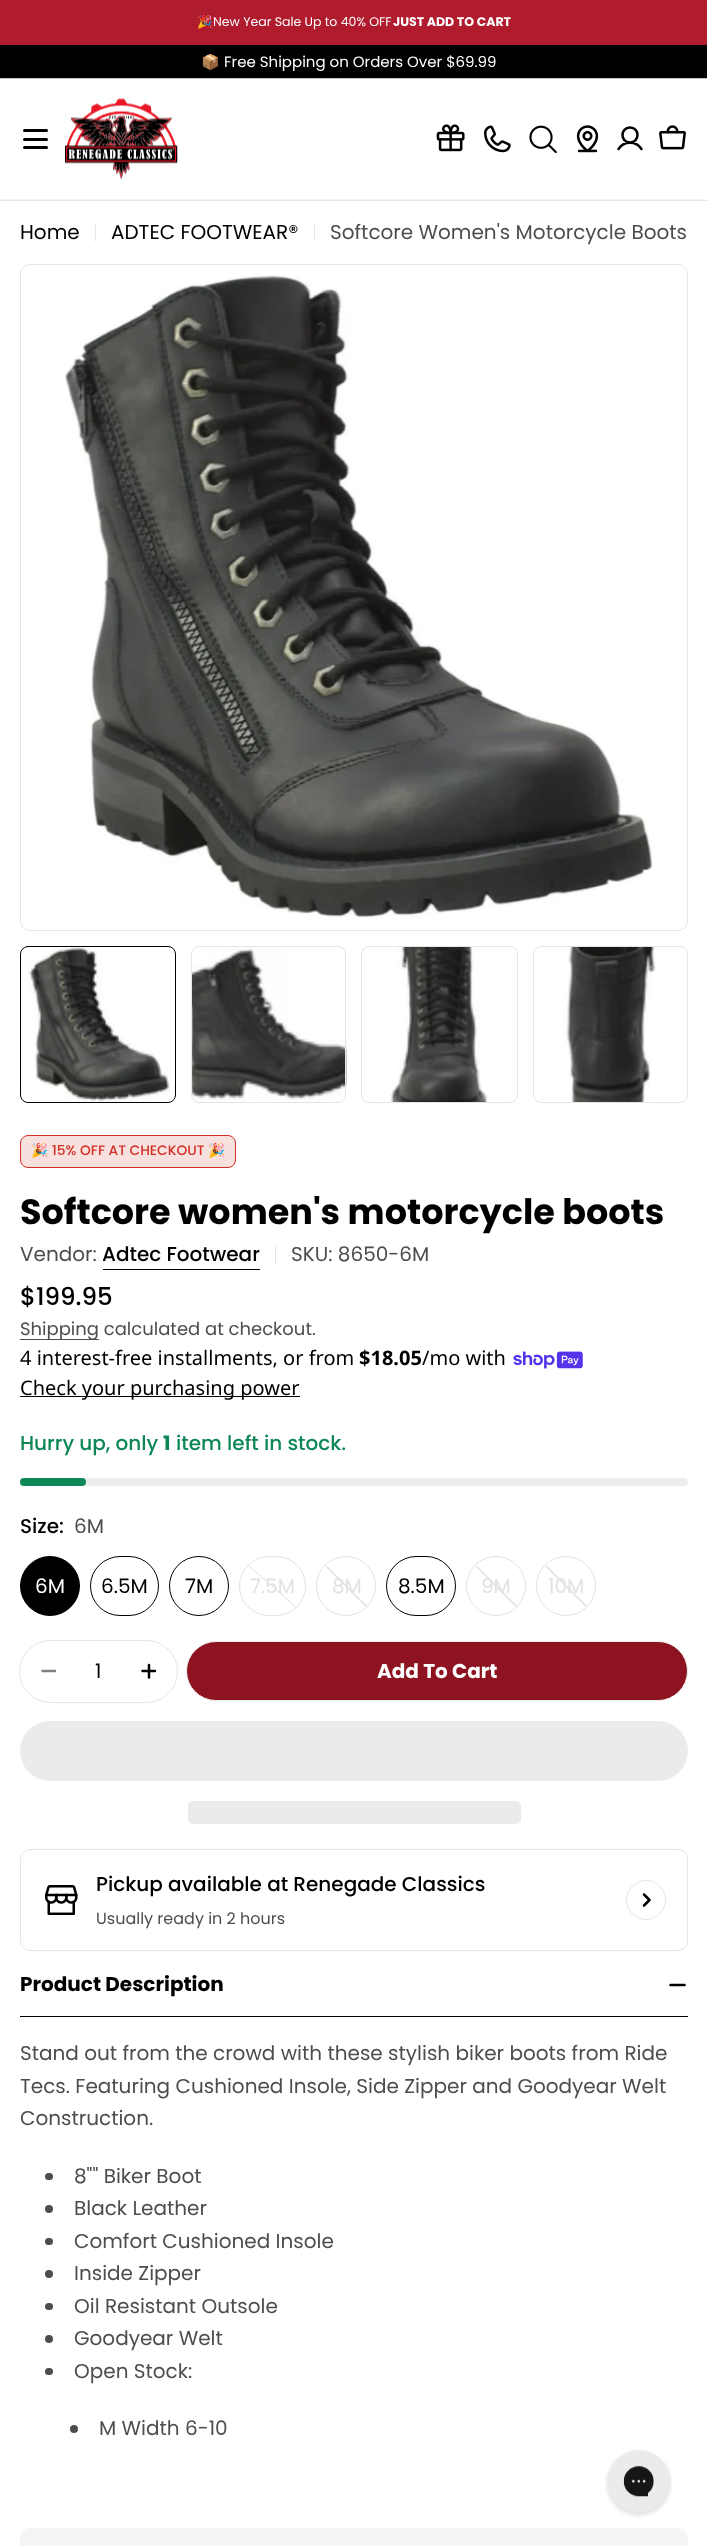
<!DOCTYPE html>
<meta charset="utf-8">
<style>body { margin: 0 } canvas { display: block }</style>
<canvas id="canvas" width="707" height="2546"></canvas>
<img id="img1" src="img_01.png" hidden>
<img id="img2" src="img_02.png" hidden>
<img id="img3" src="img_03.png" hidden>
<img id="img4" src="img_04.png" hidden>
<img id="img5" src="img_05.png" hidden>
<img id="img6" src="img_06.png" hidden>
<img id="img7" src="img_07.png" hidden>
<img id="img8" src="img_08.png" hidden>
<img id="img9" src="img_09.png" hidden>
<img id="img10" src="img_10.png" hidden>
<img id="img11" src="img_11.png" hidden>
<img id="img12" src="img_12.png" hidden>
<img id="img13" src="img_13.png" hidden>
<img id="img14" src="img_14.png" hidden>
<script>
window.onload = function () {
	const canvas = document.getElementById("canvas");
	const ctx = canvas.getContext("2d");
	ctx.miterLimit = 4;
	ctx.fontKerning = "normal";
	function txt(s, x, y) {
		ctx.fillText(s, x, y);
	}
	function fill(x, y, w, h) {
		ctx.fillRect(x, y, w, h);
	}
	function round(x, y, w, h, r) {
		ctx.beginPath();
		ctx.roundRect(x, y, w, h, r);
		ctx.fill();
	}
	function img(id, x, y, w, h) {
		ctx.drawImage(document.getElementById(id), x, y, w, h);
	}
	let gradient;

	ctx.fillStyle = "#FFFFFF";
	fill(0, 0, 707, 2546);
	ctx.fillStyle = "#B01B2E";
	fill(0, 0, 707, 45);
	ctx.fillStyle = "#000000";
	fill(0, 45, 707, 33);
	ctx.fillStyle = "#C4C4C4";
	fill(0, 78, 707, 1);
	ctx.fillStyle = "#000000";
	round(23, 138, 25, 3, 1.5);
	round(23, 129, 25, 3, 1.5);
	round(23, 146, 25, 3, 1.5);
	img("img1", 65, 98, 113, 81);
	img("img2", 436, 124, 29, 28);
	img("img3", 484, 125, 27, 28);
	img("img4", 529, 125, 28, 29);
	img("img5", 576, 125, 23, 28);
	ctx.beginPath();
	ctx.moveTo(630, 142.5);
	ctx.bezierCurveTo(640, 142.5, 640, 127.5, 630, 127.5);
	ctx.bezierCurveTo(620, 127.5, 620, 142.5, 630, 142.5);
	ctx.closePath();
	ctx.moveTo(618.5, 149);
	ctx.bezierCurveTo(623.5, 140.5, 636.5, 140.5, 641.5, 149);
	ctx.strokeStyle = "#000000";
	ctx.lineWidth = 2.5;
	ctx.lineCap = "round";
	ctx.lineJoin = "round";
	ctx.stroke();
	img("img6", 659, 125, 27, 25);
	ctx.fillStyle = "#F5F5F5";
	fill(0, 199, 707, 1);
	ctx.fillStyle = "#E5E5E5";
	fill(0, 200, 707, 1);
	ctx.fillStyle = "#E6E6E6";
	fill(95, 224, 1, 17);
	fill(314, 224, 1, 17);
	img("img7", 65, 275, 588, 643);
	ctx.beginPath();
	ctx.roundRect(20.5, 264.5, 667, 666, 9.5);
	ctx.strokeStyle = "#E5E5E5";
	ctx.lineWidth = 1;
	ctx.lineJoin = "miter";
	ctx.stroke();
	img("img8", 28, 947, 142, 155);
	ctx.beginPath();
	ctx.roundRect(20.5, 946.5, 155, 156, 7.5);
	ctx.strokeStyle = "#000000";
	ctx.stroke();
	img("img9", 191, 946, 156, 156);
	ctx.beginPath();
	ctx.roundRect(191.5, 946.5, 154, 156, 7.5);
	ctx.strokeStyle = "#E5E5E5";
	ctx.stroke();
	img("img10", 390, 947, 98, 155);
	ctx.beginPath();
	ctx.roundRect(361.5, 946.5, 156, 156, 7.5);
	ctx.stroke();
	img("img11", 563, 947, 93, 155);
	ctx.beginPath();
	ctx.roundRect(533.5, 946.5, 154, 156, 7.5);
	ctx.stroke();
	ctx.fillStyle = "#F8E0DE";
	ctx.beginPath();
	ctx.roundRect(20.5, 1135.5, 215, 32, 7.5);
	ctx.fill();
	ctx.strokeStyle = "#D22F25";
	ctx.stroke();
	ctx.fillStyle = "#000000";
	fill(103, 1269, 157, 1);
	ctx.fillStyle = "#E5E5E5";
	fill(275, 1246, 1, 18);
	ctx.fillStyle = "#4D4D4D";
	fill(20, 1339, 79, 1);
	img("img12", 513, 1351, 70, 18);
	ctx.fillStyle = "#000000";
	fill(20, 1396, 280, 1);
	ctx.fillStyle = "#ECECEC";
	round(20, 1478, 668, 8, 4);
	ctx.fillStyle = "#0D8756";
	round(20, 1478, 66, 8, 4);
	ctx.fillStyle = "#000000";
	ctx.beginPath();
	ctx.arc(50, 1586, 29.5, 0, Math.PI * 2);
	ctx.fill();
	ctx.strokeStyle = "#000000";
	ctx.stroke();
	ctx.beginPath();
	ctx.roundRect(90.5, 1556.5, 68, 59, 29.5);
	ctx.stroke();
	ctx.beginPath();
	ctx.arc(199, 1586, 29.5, 0, Math.PI * 2);
	ctx.stroke();
	ctx.beginPath();
	ctx.roundRect(239.5, 1556.5, 66, 59, 29.5);
	ctx.strokeStyle = "#E2E2E2";
	ctx.stroke();
	gradient = ctx.createLinearGradient(301, 1554, 244, 1619);
	gradient.addColorStop(0.49, "rgba(226, 226, 226, 0)");
	gradient.addColorStop(0.5, "#E2E2E2");
	gradient.addColorStop(0.51, "rgba(226, 226, 226, 0)");
	ctx.fillStyle = gradient;
	round(240, 1558, 65, 57, 28.5);
	ctx.beginPath();
	ctx.arc(346, 1586, 29.5, 0, Math.PI * 2);
	ctx.stroke();
	gradient = ctx.createLinearGradient(375, 1558, 318, 1615);
	gradient.addColorStop(0.48, "rgba(226, 226, 226, 0)");
	gradient.addColorStop(0.5, "#E2E2E2");
	gradient.addColorStop(0.52, "rgba(226, 226, 226, 0)");
	ctx.fillStyle = gradient;
	ctx.beginPath();
	ctx.arc(346.5, 1586.5, 28.5, 0, Math.PI * 2);
	ctx.fill();
	ctx.beginPath();
	ctx.roundRect(386.5, 1556.5, 69, 59, 29.5);
	ctx.strokeStyle = "#000000";
	ctx.stroke();
	ctx.beginPath();
	ctx.arc(496, 1586, 29.5, 0, Math.PI * 2);
	ctx.strokeStyle = "#E2E2E2";
	ctx.stroke();
	gradient = ctx.createLinearGradient(525, 1558, 468, 1615);
	gradient.addColorStop(0.48, "rgba(226, 226, 226, 0)");
	gradient.addColorStop(0.5, "#E2E2E2");
	gradient.addColorStop(0.52, "rgba(226, 226, 226, 0)");
	ctx.fillStyle = gradient;
	ctx.beginPath();
	ctx.arc(496.5, 1586.5, 28.5, 0, Math.PI * 2);
	ctx.fill();
	ctx.beginPath();
	ctx.arc(566, 1586, 29.5, 0, Math.PI * 2);
	ctx.stroke();
	gradient = ctx.createLinearGradient(595, 1558, 538, 1615);
	gradient.addColorStop(0.48, "rgba(226, 226, 226, 0)");
	gradient.addColorStop(0.5, "#E2E2E2");
	gradient.addColorStop(0.52, "rgba(226, 226, 226, 0)");
	ctx.fillStyle = gradient;
	ctx.beginPath();
	ctx.arc(566.5, 1586.5, 28.5, 0, Math.PI * 2);
	ctx.fill();
	ctx.beginPath();
	ctx.roundRect(19.5, 1640.5, 158, 62, 31);
	ctx.strokeStyle = "#E5E5E5";
	ctx.stroke();
	ctx.beginPath();
	ctx.moveTo(42.5, 1671);
	ctx.lineTo(55, 1671);
	ctx.strokeStyle = "#808080";
	ctx.lineWidth = 2.5;
	ctx.lineJoin = "round";
	ctx.stroke();
	ctx.beginPath();
	ctx.moveTo(142.5, 1671);
	ctx.lineTo(155, 1671);
	ctx.moveTo(149, 1665);
	ctx.lineTo(149, 1677.5);
	ctx.strokeStyle = "#000000";
	ctx.stroke();
	ctx.fillStyle = "#8C131F";
	ctx.beginPath();
	ctx.roundRect(186.5, 1641.5, 501, 59, 29.5);
	ctx.fill();
	ctx.strokeStyle = "#EDEDED";
	ctx.lineWidth = 1;
	ctx.lineJoin = "miter";
	ctx.stroke();
	ctx.fillStyle = "#EBEBEB";
	round(20, 1721, 668, 60, 30);
	round(188, 1801, 333, 23, 5);
	ctx.beginPath();
	ctx.roundRect(20.5, 1849.5, 667, 101, 9.5);
	ctx.strokeStyle = "#E5E5E5";
	ctx.stroke();
	img("img13", 45, 1885, 33, 30);
	ctx.beginPath();
	ctx.arc(646, 1900, 19.5, 0, Math.PI * 2);
	ctx.stroke();
	ctx.beginPath();
	ctx.moveTo(644, 1894.5);
	ctx.lineTo(649.5, 1900);
	ctx.lineTo(644, 1905.5);
	ctx.strokeStyle = "#000000";
	ctx.lineWidth = 2.5;
	ctx.lineJoin = "round";
	ctx.stroke();
	ctx.fillStyle = "#000000";
	fill(20, 2016, 668, 1);
	ctx.beginPath();
	ctx.moveTo(670.5, 1985);
	ctx.lineTo(684.5, 1985);
	ctx.moveTo(670.5, 1985);
	ctx.lineTo(684.5, 1985);
	ctx.stroke();
	ctx.fillStyle = "#4D4D4D";
	round(45, 2173, 8, 7, 3.5);
	ctx.beginPath();
	ctx.arc(49, 2209, 4, 0, Math.PI * 2);
	ctx.fill();
	round(45, 2238, 8, 7, 3.5);
	ctx.beginPath();
	ctx.arc(49, 2274, 4, 0, Math.PI * 2);
	ctx.fill();
	round(45, 2303, 8, 7, 3.5);
	ctx.beginPath();
	ctx.arc(49, 2339, 4, 0, Math.PI * 2);
	ctx.fill();
	round(45, 2368, 8, 7, 3.5);
	ctx.beginPath();
	ctx.arc(74, 2429, 4, 0, Math.PI * 2);
	ctx.fill();
	ctx.fillStyle = "#F5F5F5";
	round(20, 2528, 668, 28, 10);
	img("img14", 605, 2449, 67, 69);
	ctx.font = "12.5px Noto Color Emoji";
	ctx.fillStyle = "#FFFFFF";
	txt("🎉", 197, 26);
	ctx.font = "12.5px Poppins";
	txt("New Year Sale Up to 40% OFF", 213, 26);
	ctx.font = "bold 12.5px Poppins";
	txt("JUST ADD TO CART", 393, 26);
	ctx.font = "15px Noto Color Emoji";
	txt("📦", 201, 67);
	ctx.font = "15px Poppins";
	txt("Free Shipping on Orders Over $69.99", 224, 67);
	ctx.font = "20px Poppins";
	ctx.fillStyle = "#000000";
	txt("Home", 20, 239);
	txt("ADTEC FOOTWEAR®", 111, 239);
	ctx.fillStyle = "#4D4D4D";
	txt("Softcore Women's Motorcycle Boots", 330, 239);
	ctx.font = "13.75px Noto Color Emoji";
	ctx.fillStyle = "#D22F25";
	txt("🎉", 31, 1155);
	ctx.font = "500 13.75px Poppins";
	txt("15% OFF AT CHECKOUT", 52, 1155);
	ctx.font = "13.75px Noto Color Emoji";
	txt("🎉", 208, 1155);
	ctx.font = "bold 35px Poppins";
	ctx.fillStyle = "#000000";
	txt("Softcore women's motorcycle boots", 20, 1224);
	ctx.font = "20px Poppins";
	ctx.fillStyle = "#4D4D4D";
	txt("Vendor:", 20, 1261);
	ctx.font = "500 20px Poppins";
	ctx.fillStyle = "#000000";
	txt("Adtec Footwear", 102, 1261);
	ctx.font = "20px Poppins";
	ctx.fillStyle = "#4D4D4D";
	txt("SKU: 8650-6M", 291, 1261);
	ctx.font = "500 24.5px Poppins";
	ctx.fillStyle = "#000000";
	txt("$199.95", 20, 1305);
	ctx.font = "18px Poppins";
	ctx.fillStyle = "#4D4D4D";
	txt("Shipping calculated at checkout.", 20, 1335);
	ctx.font = "20px Noto Sans";
	ctx.fillStyle = "#000000";
	txt("4 interest-free installments, or from", 20, 1365);
	ctx.font = "bold 20px Noto Sans";
	txt("$18.05", 359, 1365);
	ctx.font = "20px Noto Sans";
	txt("/mo with", 422, 1365);
	txt("Check your purchasing power", 20, 1395);
	ctx.font = "500 20px Poppins";
	ctx.fillStyle = "#0D8756";
	txt("Hurry up, only", 20, 1450);
	ctx.font = "bold 20px Poppins";
	txt("1", 163, 1450);
	ctx.font = "500 20px Poppins";
	txt("item left in stock.", 176, 1450);
	ctx.fillStyle = "#000000";
	txt("Size:", 20, 1533);
	ctx.font = "20px Poppins";
	ctx.fillStyle = "#4D4D4D";
	txt("6M", 74, 1533);
	ctx.fillStyle = "#FFFFFF";
	txt("6M", 35, 1593);
	ctx.fillStyle = "#000000";
	txt("6.5M", 101, 1593);
	txt("7M", 185, 1593);
	ctx.fillStyle = "#E2E2E2";
	txt("7.5M", 250, 1593);
	txt("8M", 332, 1593);
	ctx.fillStyle = "#000000";
	txt("8.5M", 398, 1593);
	ctx.fillStyle = "#E2E2E2";
	txt("9M", 481, 1593);
	txt("10M", 548, 1593);
	ctx.fillStyle = "#000000";
	txt("1", 95, 1678);
	ctx.font = "bold 20px Poppins";
	ctx.fillStyle = "#FFFFFF";
	txt("Add To Cart", 377, 1678);
	ctx.font = "500 20px Poppins";
	ctx.fillStyle = "#000000";
	txt("Pickup available at Renegade Classics", 96, 1891);
	ctx.font = "16px Poppins";
	ctx.fillStyle = "#4D4D4D";
	txt("Usually ready in 2 hours", 96, 1924);
	ctx.font = "bold 20px Poppins";
	ctx.fillStyle = "#000000";
	txt("Product Description", 20, 1991);
	ctx.font = "20px Poppins";
	ctx.fillStyle = "#4D4D4D";
	txt("Stand out from the crowd with these stylish biker boots from Ride", 20, 2060);
	txt("Tecs. Featuring Cushioned Insole, Side Zipper and Goodyear Welt", 20, 2093);
	txt("Construction.", 20, 2125);
	txt("8\"\" Biker Boot", 74, 2183);
	txt("Black Leather", 74, 2215);
	txt("Comfort Cushioned Insole", 74, 2248);
	txt("Inside Zipper", 74, 2280);
	txt("Oil Resistant Outsole", 74, 2313);
	txt("Goodyear Welt", 74, 2345);
	txt("Open Stock:", 74, 2378);
	txt("M Width 6-10", 99, 2435);
};
</script>
